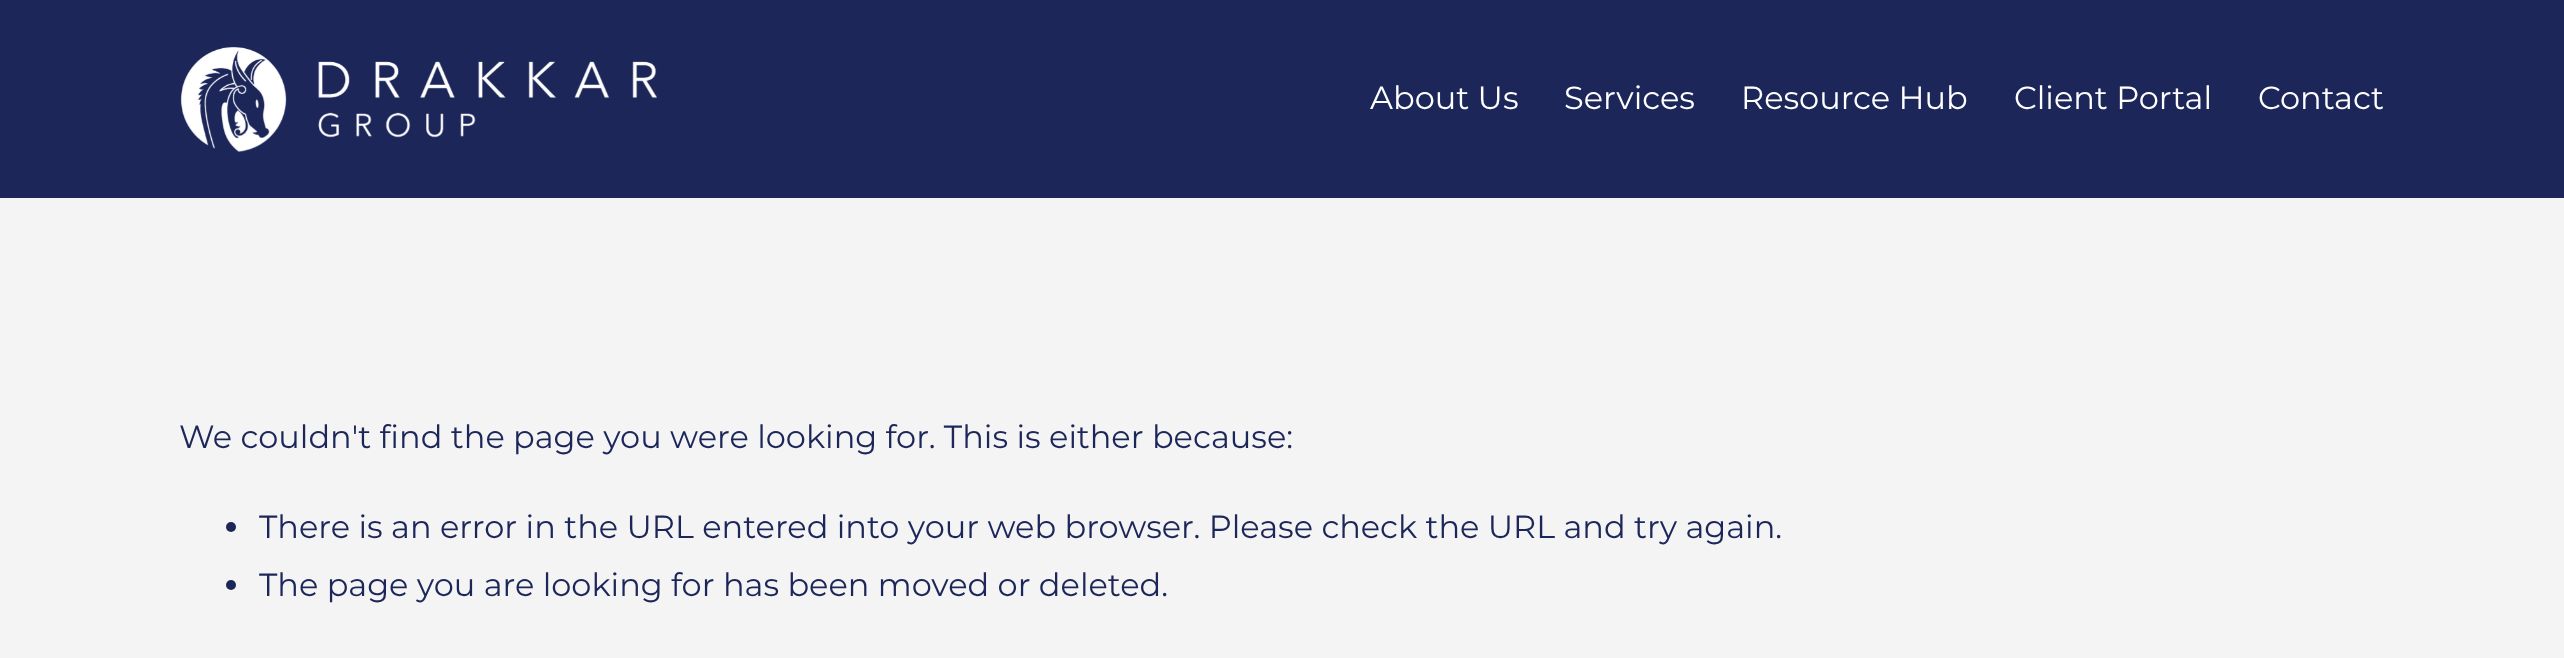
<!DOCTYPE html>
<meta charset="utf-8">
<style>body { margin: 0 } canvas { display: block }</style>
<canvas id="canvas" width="2564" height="658"></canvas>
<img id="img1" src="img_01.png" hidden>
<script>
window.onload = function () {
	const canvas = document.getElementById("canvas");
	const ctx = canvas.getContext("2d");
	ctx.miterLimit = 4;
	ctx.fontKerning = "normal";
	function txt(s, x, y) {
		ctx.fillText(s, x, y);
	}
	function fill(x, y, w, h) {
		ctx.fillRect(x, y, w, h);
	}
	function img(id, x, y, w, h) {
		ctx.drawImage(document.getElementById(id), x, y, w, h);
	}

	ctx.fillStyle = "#F4F4F4";
	fill(0, 0, 2564, 658);
	ctx.fillStyle = "#1C2659";
	fill(0, 0, 2564, 198);
	img("img1", 180, 47, 477, 105);
	ctx.beginPath();
	ctx.arc(231, 527, 5, 0, Math.PI * 2);
	ctx.fill();
	ctx.beginPath();
	ctx.arc(231, 585, 5, 0, Math.PI * 2);
	ctx.fill();
	ctx.font = "32px Montserrat";
	ctx.fillStyle = "#FFFFFF";
	txt("About Us", 1370, 109);
	txt("Services", 1564, 109);
	txt("Resource Hub", 1741, 109);
	txt("Client Portal", 2014, 109);
	txt("Contact", 2258, 109);
	ctx.fillStyle = "#1C2659";
	txt("We couldn't find the page you were looking for. This is either because:", 179, 448);
	txt("There is an error in the URL entered into your web browser. Please check the URL and try again.", 259, 538);
	txt("The page you are looking for has been moved or deleted.", 259, 596);
};
</script>
